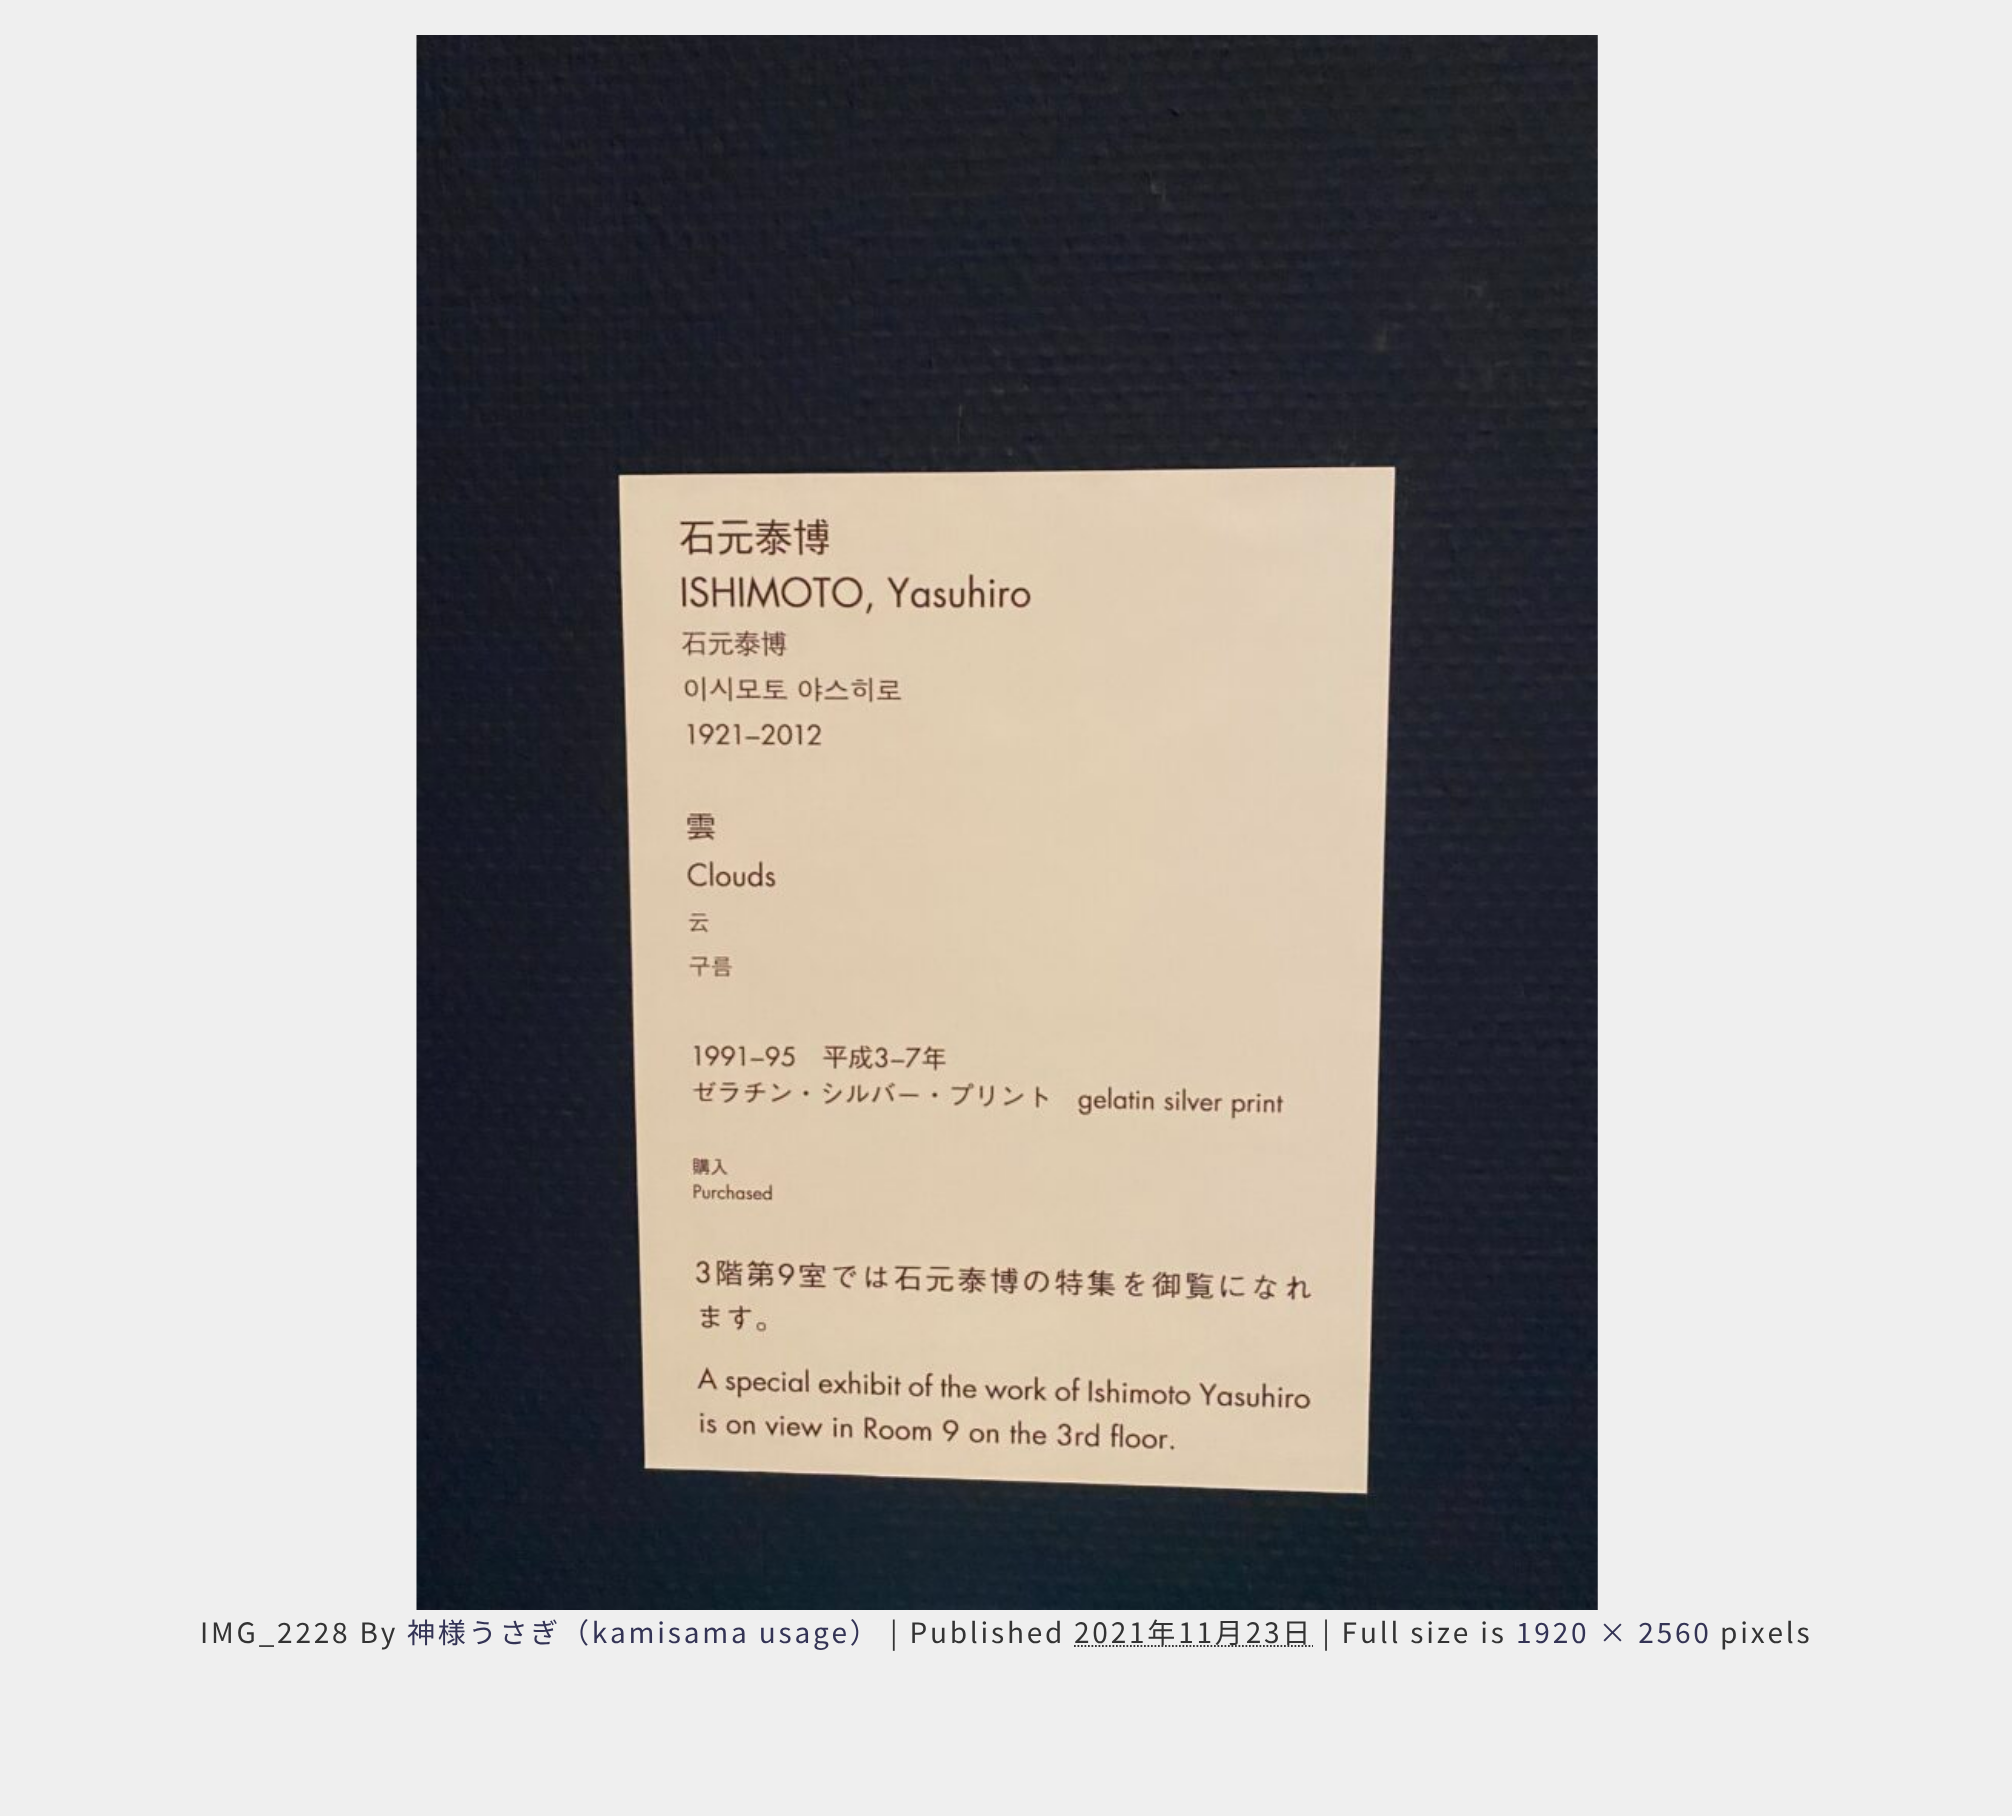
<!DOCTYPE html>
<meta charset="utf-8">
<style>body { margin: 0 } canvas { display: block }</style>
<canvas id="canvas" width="2012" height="1816"></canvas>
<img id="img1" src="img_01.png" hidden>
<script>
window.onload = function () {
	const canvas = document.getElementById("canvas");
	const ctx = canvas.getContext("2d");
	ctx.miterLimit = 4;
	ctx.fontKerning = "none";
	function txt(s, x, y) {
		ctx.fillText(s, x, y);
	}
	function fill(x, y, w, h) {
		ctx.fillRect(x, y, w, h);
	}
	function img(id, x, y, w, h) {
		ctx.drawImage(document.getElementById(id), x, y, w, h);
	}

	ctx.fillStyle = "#EFEFEF";
	fill(0, 0, 2012, 1816);
	img("img1", 416, 35, 1182, 1575);
	ctx.beginPath();
	ctx.moveTo(1074, 1646);
	ctx.lineTo(1313, 1646);
	ctx.strokeStyle = "#333333";
	ctx.lineWidth = 1.8;
	ctx.setLineDash([1.75, 1.75]);
	ctx.stroke();
	ctx.letterSpacing = "2.8px";
	ctx.font = "28px Noto Sans JP";
	ctx.fillStyle = "#333333";
	txt("IMG_2228 By", 200, 1643);
	ctx.fillStyle = "#333355";
	txt("神様うさぎ（kamisama usage）", 407, 1643);
	ctx.fillStyle = "#333333";
	txt("| Published", 890, 1643);
	txt("2021年11月23日 | Full size is", 1074, 1643);
	ctx.fillStyle = "#333355";
	txt("1920 × 2560", 1516, 1643);
	ctx.fillStyle = "#333333";
	txt("pixels", 1720, 1643);
};
</script>
